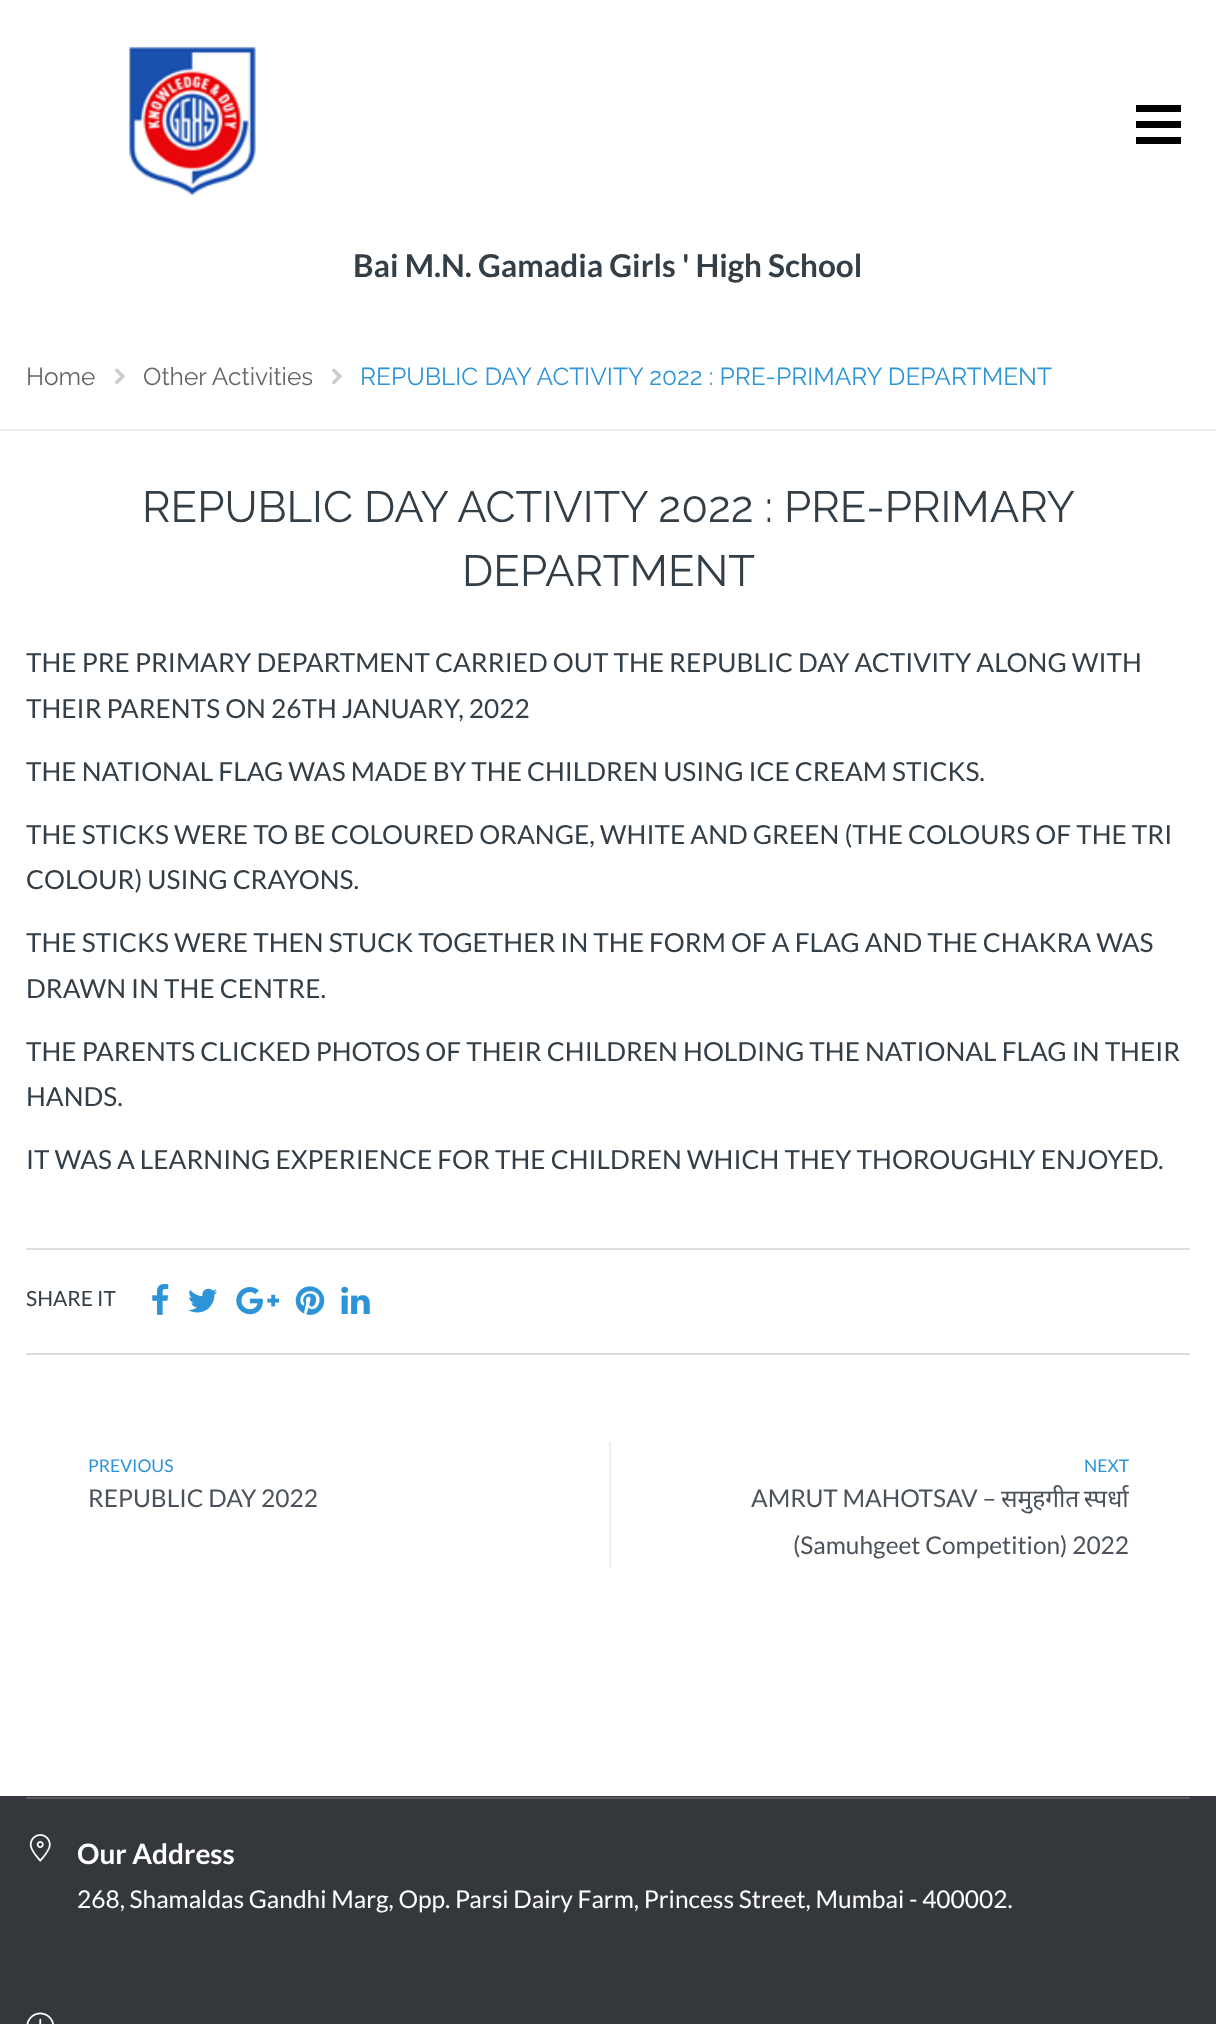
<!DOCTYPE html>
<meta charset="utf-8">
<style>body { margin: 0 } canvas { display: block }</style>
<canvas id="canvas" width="1216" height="2024"></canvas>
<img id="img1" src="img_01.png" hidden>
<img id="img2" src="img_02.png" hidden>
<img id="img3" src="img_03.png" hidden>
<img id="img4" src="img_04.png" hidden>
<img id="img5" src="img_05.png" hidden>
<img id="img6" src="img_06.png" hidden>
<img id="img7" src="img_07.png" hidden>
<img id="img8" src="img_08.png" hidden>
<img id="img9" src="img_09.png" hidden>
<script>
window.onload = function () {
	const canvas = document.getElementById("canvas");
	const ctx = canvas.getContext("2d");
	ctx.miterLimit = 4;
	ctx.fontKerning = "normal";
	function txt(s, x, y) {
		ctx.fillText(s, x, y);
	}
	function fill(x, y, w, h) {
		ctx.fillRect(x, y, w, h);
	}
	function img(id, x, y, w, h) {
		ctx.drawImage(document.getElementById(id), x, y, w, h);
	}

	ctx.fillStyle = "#FFFFFF";
	fill(0, 0, 1216, 2024);
	img("img1", 129, 46, 127, 150);
	ctx.fillStyle = "#000000";
	fill(1136, 105, 45, 7);
	fill(1136, 121, 45, 7);
	fill(1136, 137, 45, 7);
	ctx.fillStyle = "#EEEEEE";
	fill(0, 429, 1216, 2);
	img("img2", 115, 368, 10, 17);
	img("img2", 332, 368, 10, 17);
	ctx.fillStyle = "#DDDDDD";
	fill(26, 1248, 1164, 2);
	fill(26, 1353, 1164, 2);
	img("img3", 152, 1284, 17, 31);
	img("img4", 188, 1288, 30, 25);
	img("img5", 236, 1287, 43, 28);
	img("img6", 295, 1286, 30, 29);
	img("img7", 341, 1286, 29, 28);
	ctx.fillStyle = "#ECEDF0";
	fill(609, 1442, 2, 126);
	ctx.fillStyle = "#34373C";
	fill(0, 1796, 1216, 228);
	ctx.fillStyle = "#5A5C60";
	fill(26, 1797, 1164, 2);
	img("img8", 29, 1834, 22, 28);
	img("img9", 26, 2012, 28, 12);
	ctx.font = "bold 31.5px Lato";
	ctx.fillStyle = "#343E47";
	txt("Bai M.N. Gamadia Girls ' High School", 353, 277);
	ctx.font = "24.5px Raleway";
	ctx.fillStyle = "#666666";
	txt("Home", 26, 385);
	txt("Other Activities", 143, 385);
	ctx.fillStyle = "#2D94D8";
	txt("REPUBLIC DAY ACTIVITY 2022 : PRE-PRIMARY DEPARTMENT", 360, 385);
	ctx.font = "43.75px Raleway";
	ctx.fillStyle = "#343E47";
	txt("REPUBLIC DAY ACTIVITY 2022 : PRE-PRIMARY", 142, 522);
	txt("DEPARTMENT", 462, 586);
	ctx.font = "26.25px Lato";
	txt("THE PRE PRIMARY DEPARTMENT CARRIED OUT THE REPUBLIC DAY ACTIVITY ALONG WITH", 26, 672);
	txt("THEIR PARENTS ON 26TH JANUARY, 2022", 26, 718);
	txt("THE NATIONAL FLAG WAS MADE BY THE CHILDREN USING ICE CREAM STICKS.", 26, 781);
	txt("THE STICKS WERE TO BE COLOURED ORANGE, WHITE AND GREEN (THE COLOURS OF THE TRI", 26, 844);
	txt("COLOUR) USING CRAYONS.", 26, 889);
	txt("THE STICKS WERE THEN STUCK TOGETHER IN THE FORM OF A FLAG AND THE CHAKRA WAS", 26, 952);
	txt("DRAWN IN THE CENTRE.", 26, 998);
	txt("THE PARENTS CLICKED PHOTOS OF THEIR CHILDREN HOLDING THE NATIONAL FLAG IN THEIR", 26, 1061);
	txt("HANDS.", 26, 1106);
	txt("IT WAS A LEARNING EXPERIENCE FOR THE CHILDREN WHICH THEY THOROUGHLY ENJOYED.", 26, 1169);
	ctx.font = "21px Lato";
	txt("SHARE IT", 26, 1306);
	ctx.font = "17.5px Lato";
	ctx.fillStyle = "#2D94D8";
	txt("PREVIOUS", 88, 1472);
	ctx.font = "24.5px Lato";
	ctx.fillStyle = "#4C525B";
	txt("REPUBLIC DAY 2022", 88, 1507);
	ctx.font = "17.5px Lato";
	ctx.fillStyle = "#2D94D8";
	txt("NEXT", 1084, 1472);
	ctx.font = "24.5px Lato";
	ctx.fillStyle = "#4C525B";
	txt("AMRUT MAHOTSAV –", 751, 1507);
	ctx.wordSpacing = "-2px";
	ctx.font = "24.5px Noto Sans";
	txt("समुहगीत स्पर्धा", 1001, 1507);
	ctx.wordSpacing = "0px";
	ctx.font = "24.5px Lato";
	txt("(Samuhgeet Competition) 2022", 793, 1554);
	ctx.font = "bold 28px Lato";
	ctx.fillStyle = "#FFFFFF";
	txt("Our Address", 77, 1864);
	ctx.font = "24.5px Lato";
	txt("268, Shamaldas Gandhi Marg, Opp. Parsi Dairy Farm, Princess Street, Mumbai - 400002.", 77, 1908);
};
</script>
